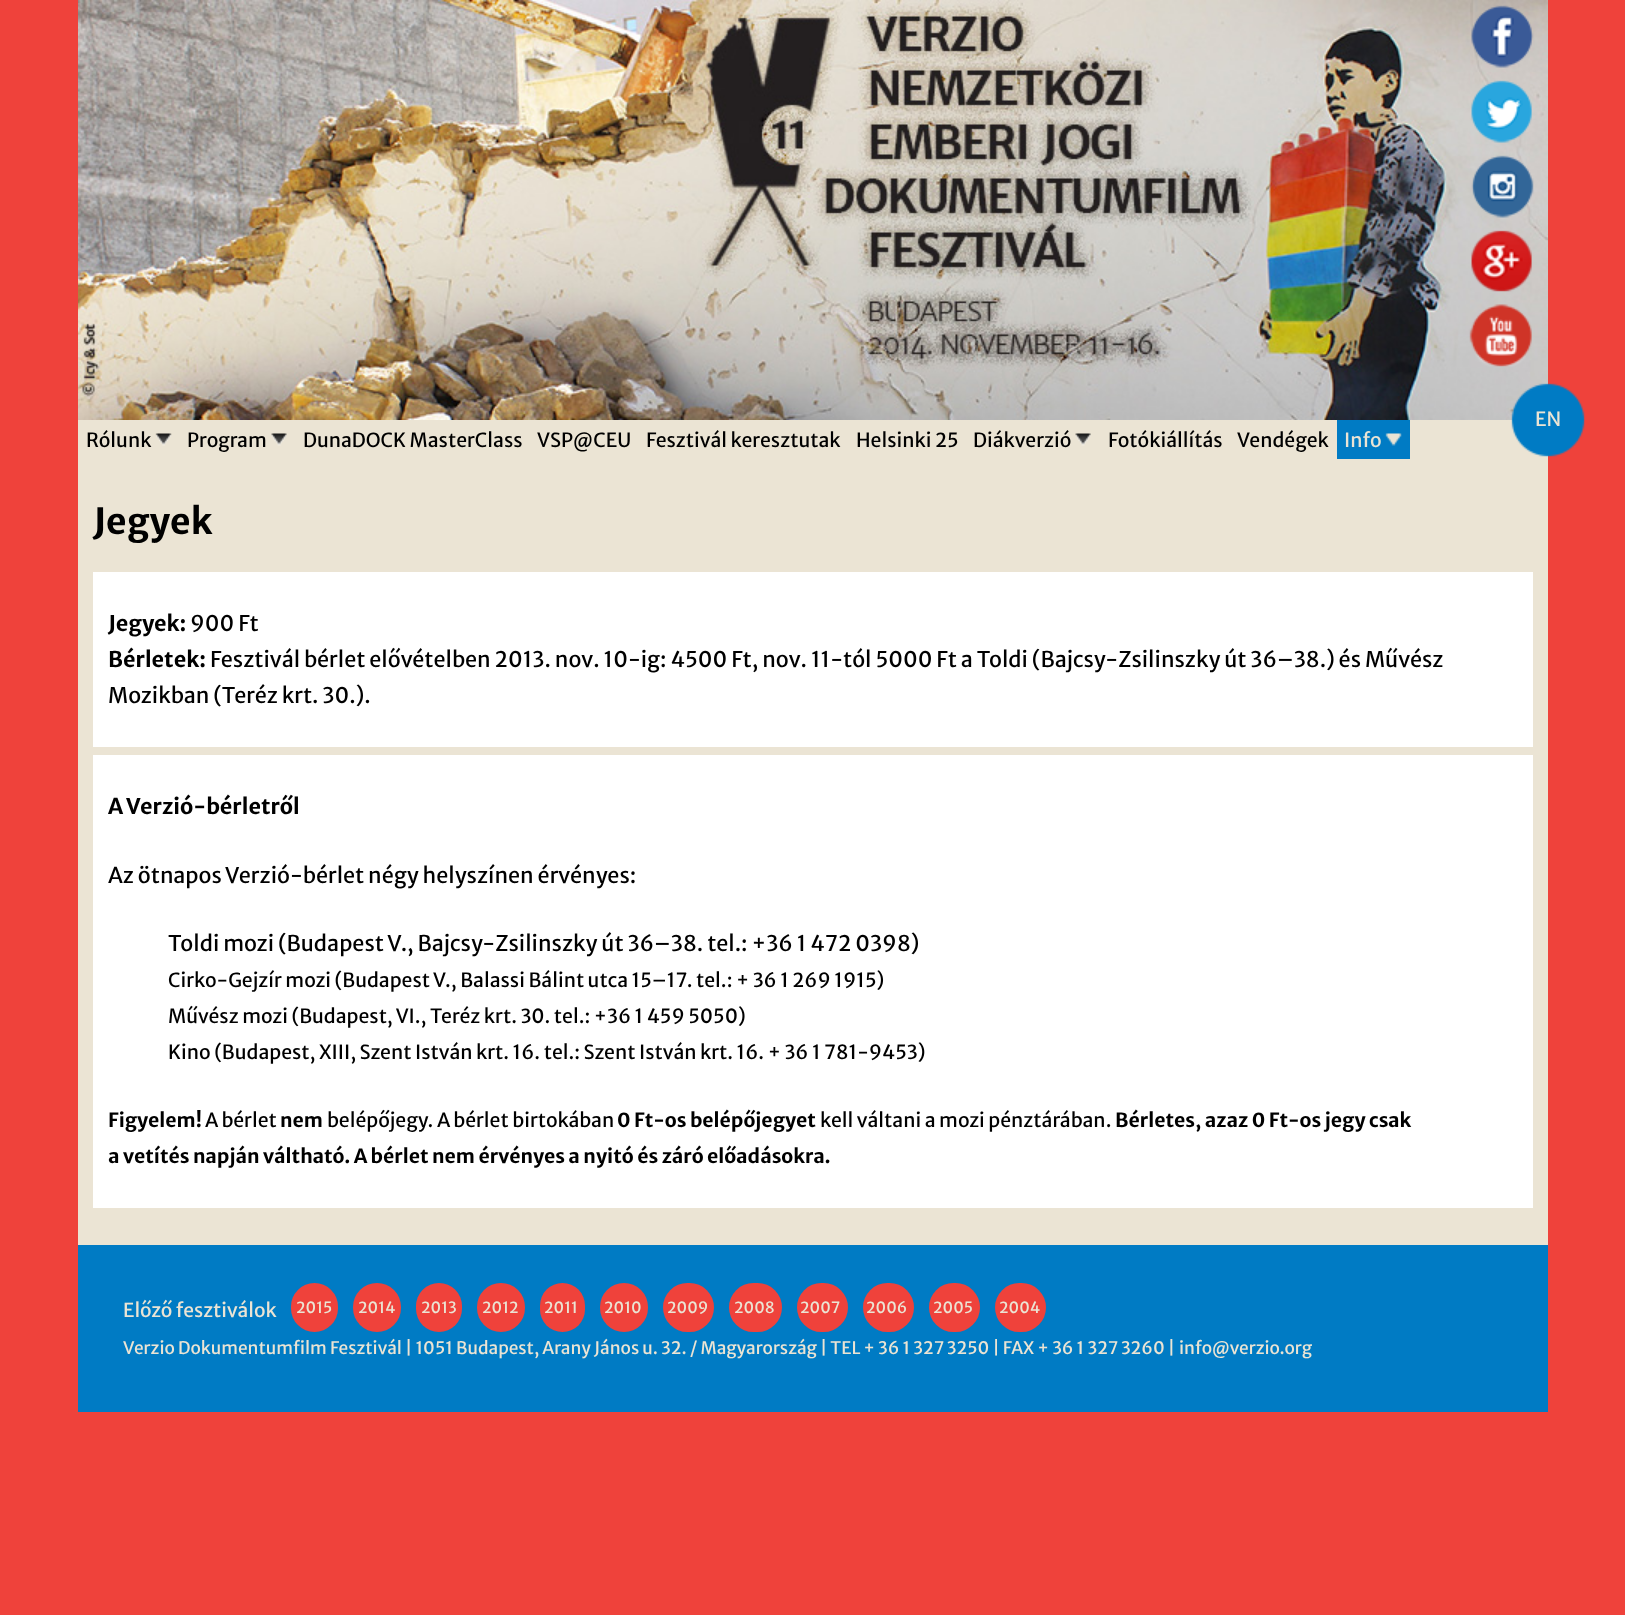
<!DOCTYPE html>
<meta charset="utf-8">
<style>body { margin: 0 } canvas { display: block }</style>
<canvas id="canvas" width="1625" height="1615"></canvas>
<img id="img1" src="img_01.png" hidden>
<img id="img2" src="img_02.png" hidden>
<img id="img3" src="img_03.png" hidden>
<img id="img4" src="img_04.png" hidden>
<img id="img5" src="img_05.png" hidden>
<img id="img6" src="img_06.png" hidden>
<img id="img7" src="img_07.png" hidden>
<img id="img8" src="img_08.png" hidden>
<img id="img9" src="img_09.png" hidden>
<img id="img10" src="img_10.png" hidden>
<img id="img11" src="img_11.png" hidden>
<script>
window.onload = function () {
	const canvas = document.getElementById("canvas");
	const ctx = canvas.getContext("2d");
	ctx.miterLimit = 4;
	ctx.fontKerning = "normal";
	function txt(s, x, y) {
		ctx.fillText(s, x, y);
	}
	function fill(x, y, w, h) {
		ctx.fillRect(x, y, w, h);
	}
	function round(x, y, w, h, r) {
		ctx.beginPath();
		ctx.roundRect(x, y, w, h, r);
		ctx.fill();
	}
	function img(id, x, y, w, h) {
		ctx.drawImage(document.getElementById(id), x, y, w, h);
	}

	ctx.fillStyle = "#EF423B";
	fill(0, 0, 1625, 1615);
	ctx.fillStyle = "#EBE4D4";
	fill(78, 420, 1470, 825);
	img("img1", 78, 0, 1470, 420);
	img("img2", 1471, 5, 63, 63);
	img("img3", 1471, 80, 61, 63);
	img("img4", 1471, 155, 63, 63);
	img("img5", 1471, 230, 61, 62);
	img("img6", 1469, 304, 63, 63);
	img("img7", 1511, 383, 74, 74);
	img("img8", 155, 433, 17, 13);
	img("img9", 271, 433, 16, 13);
	img("img10", 1075, 433, 16, 13);
	ctx.fillStyle = "#007BC4";
	fill(1337, 420, 73, 39);
	img("img11", 1385, 433, 17, 13);
	ctx.fillStyle = "#FFFFFF";
	fill(93, 572, 1440, 175);
	fill(93, 755, 1440, 453);
	ctx.fillStyle = "#007BC4";
	fill(78, 1245, 1470, 167);
	ctx.fillStyle = "#EF423B";
	round(291, 1283, 47, 49, 23.5);
	round(353, 1283, 48, 49, 24);
	round(416, 1283, 46, 49, 23);
	round(477, 1283, 48, 49, 24);
	round(540, 1283, 45, 49, 22.5);
	round(600, 1283, 48, 49, 24);
	round(663, 1283, 51, 49, 24.5);
	round(729, 1283, 53, 49, 24.5);
	round(797, 1283, 51, 49, 24.5);
	round(863, 1283, 51, 49, 24.5);
	round(929, 1283, 51, 49, 24.5);
	round(995, 1283, 51, 49, 24.5);
	ctx.font = "19.45px Merriweather Sans";
	ctx.fillStyle = "#EBE4D4";
	txt("EN", 1535, 426);
	ctx.fillStyle = "#000000";
	txt("Rólunk", 86, 447);
	txt("Program", 187, 447);
	txt("DunaDOCK MasterClass", 303, 447);
	txt("VSP@CEU", 537, 447);
	txt("Fesztivál keresztutak", 646, 447);
	txt("Helsinki 25", 856, 447);
	txt("Diákverzió", 973, 447);
	txt("Fotókiállítás", 1108, 447);
	txt("Vendégek", 1237, 447);
	ctx.fillStyle = "#EBE4D4";
	txt("Info", 1344, 447);
	ctx.font = "bold 36px Merriweather Sans";
	ctx.fillStyle = "#000000";
	txt("Jegyek", 93, 534);
	ctx.font = "bold 21.6px Merriweather Sans";
	txt("Jegyek:", 108, 631);
	ctx.font = "21.6px Merriweather Sans";
	txt("900 Ft", 190, 631);
	ctx.font = "bold 21.6px Merriweather Sans";
	txt("Bérletek:", 108, 667);
	ctx.font = "21.6px Merriweather Sans";
	txt("Fesztivál bérlet elővételben 2013. nov. 10-ig: 4500 Ft, nov. 11-tól 5000 Ft a Toldi (Bajcsy-Zsilinszky út 36–38.) és Művész", 210, 667);
	txt("Mozikban (Teréz krt. 30.).", 108, 703);
	ctx.font = "bold 21.6px Merriweather Sans";
	txt("A Verzió-bérletről", 108, 814);
	ctx.font = "21.6px Merriweather Sans";
	txt("Az ötnapos Verzió-bérlet négy helyszínen érvényes:", 108, 883);
	txt("Toldi mozi (Budapest V., Bajcsy-Zsilinszky út 36–38. tel.: +36 1 472 0398)", 168, 951);
	ctx.font = "19.45px Merriweather Sans";
	txt("Cirko-Gejzír mozi (Budapest V., Balassi Bálint utca 15–17. tel.: + 36 1 269 1915)", 168, 987);
	txt("Művész mozi (Budapest, VI., Teréz krt. 30. tel.: +36 1 459 5050)", 168, 1023);
	txt("Kino (Budapest, XIII, Szent István krt. 16. tel.: Szent István krt. 16. + 36 1 781-9453)", 168, 1059);
	ctx.font = "bold 19.45px Merriweather Sans";
	txt("Figyelem!", 108, 1127);
	ctx.font = "19.45px Merriweather Sans";
	txt("A bérlet", 205, 1127);
	ctx.font = "bold 19.45px Merriweather Sans";
	txt("nem", 280, 1127);
	ctx.font = "19.45px Merriweather Sans";
	txt("belépőjegy. A bérlet birtokában", 327, 1127);
	ctx.font = "bold 19.45px Merriweather Sans";
	txt("0 Ft-os belépőjegyet", 617, 1127);
	ctx.font = "19.45px Merriweather Sans";
	txt("kell váltani a mozi pénztárában.", 820, 1127);
	ctx.font = "bold 19.45px Merriweather Sans";
	txt("Bérletes, azaz 0 Ft-os jegy csak", 1115, 1127);
	txt("a vetítés napján váltható. A bérlet nem érvényes a nyitó és záró előadásokra.", 108, 1163);
	ctx.font = "19.25px Merriweather Sans";
	ctx.fillStyle = "#EBE4D4";
	txt("Előző fesztiválok", 123, 1317);
	ctx.font = "15.5px Merriweather Sans";
	txt("2015", 296, 1313);
	txt("2014", 358, 1313);
	txt("2013", 421, 1313);
	txt("2012", 482, 1313);
	txt("2011", 544, 1313);
	txt("2010", 604, 1313);
	txt("2009", 667, 1313);
	txt("2008", 734, 1313);
	txt("2007", 800, 1313);
	txt("2006", 866, 1313);
	txt("2005", 933, 1313);
	txt("2004", 999, 1313);
	ctx.font = "17.28px Merriweather Sans";
	txt("Verzio Dokumentumfilm Fesztivál | 1051 Budapest, Arany János u. 32. / Magyarország | TEL + 36 1 327 3250 | FAX + 36 1 327 3260 |", 123, 1354);
	txt("info@verzio.org", 1179, 1354);
};
</script>
